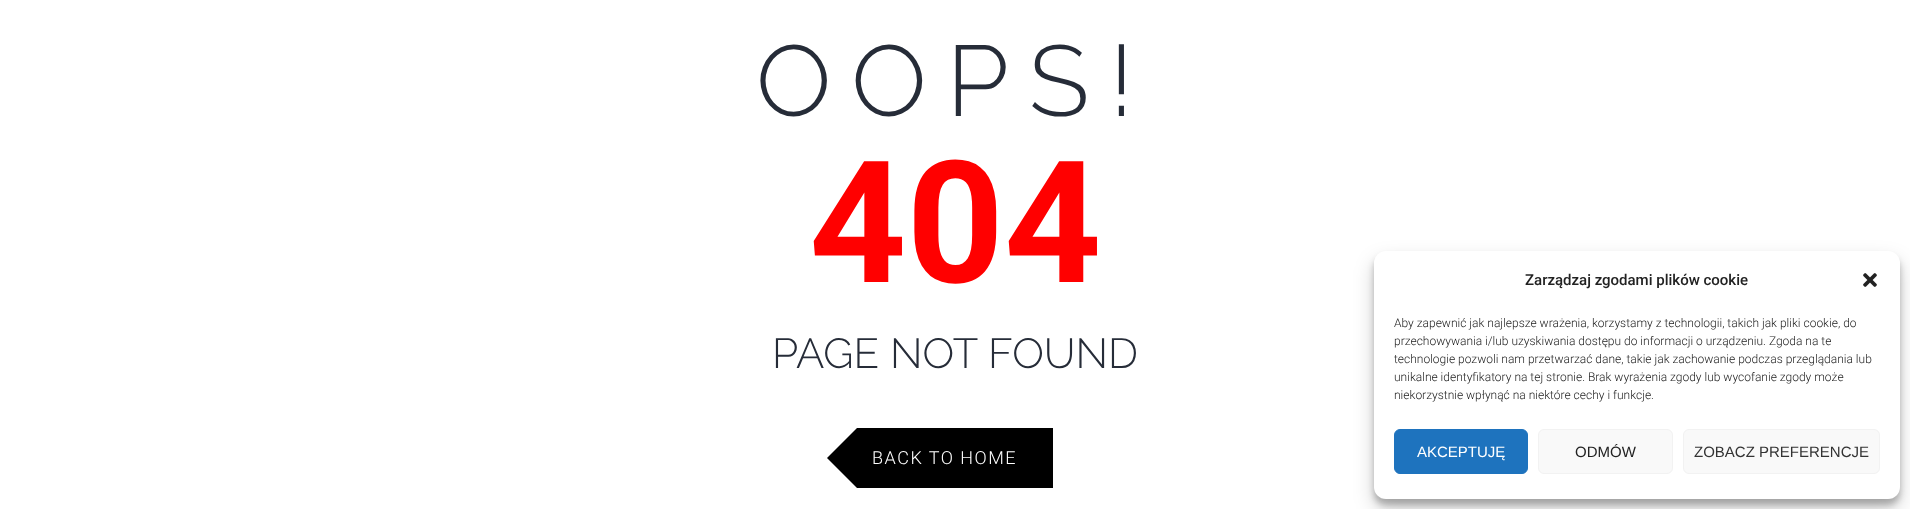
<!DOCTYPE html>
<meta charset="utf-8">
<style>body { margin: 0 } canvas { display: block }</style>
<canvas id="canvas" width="1910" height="509"></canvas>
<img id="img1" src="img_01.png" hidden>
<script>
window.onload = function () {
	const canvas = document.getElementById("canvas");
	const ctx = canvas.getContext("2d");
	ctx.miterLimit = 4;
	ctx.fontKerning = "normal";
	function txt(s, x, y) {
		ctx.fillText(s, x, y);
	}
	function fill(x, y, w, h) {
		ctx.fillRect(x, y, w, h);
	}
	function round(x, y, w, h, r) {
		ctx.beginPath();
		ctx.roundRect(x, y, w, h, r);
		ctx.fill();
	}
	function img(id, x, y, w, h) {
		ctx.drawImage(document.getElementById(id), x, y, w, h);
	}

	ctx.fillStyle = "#FFFFFF";
	fill(0, 0, 1910, 509);
	ctx.fillStyle = "#000000";
	fill(857, 428, 196, 60);
	ctx.beginPath();
	ctx.moveTo(857, 428);
	ctx.lineTo(857, 488);
	ctx.lineTo(827, 458);
	ctx.closePath();
	ctx.fill();
	ctx.fillStyle = "rgba(0, 0, 0, 0.23)";
	ctx.filter = "blur(3px)";
	ctx.beginPath();
	ctx.roundRect(1374, 257, 526, 248, 12);
	ctx.fill();
	ctx.filter = "none";
	ctx.fillStyle = "rgba(0, 0, 0, 0.19)";
	ctx.filter = "blur(10px)";
	ctx.beginPath();
	ctx.roundRect(1374, 261, 526, 248, 12);
	ctx.fill();
	ctx.filter = "none";
	ctx.fillStyle = "#FFFFFF";
	round(1374, 251, 526, 248, 12);
	img("img1", 1863, 273, 14, 14);
	ctx.fillStyle = "#1E73BE";
	ctx.beginPath();
	ctx.roundRect(1394.5, 429.5, 133, 44, 5.5);
	ctx.fill();
	ctx.strokeStyle = "#1E73BE";
	ctx.stroke();
	ctx.fillStyle = "#F9F9F9";
	ctx.beginPath();
	ctx.roundRect(1538.5, 429.5, 134, 44, 5.5);
	ctx.fill();
	ctx.strokeStyle = "#F2F2F2";
	ctx.stroke();
	ctx.beginPath();
	ctx.roundRect(1683.5, 429.5, 196, 44, 5.5);
	ctx.fill();
	ctx.stroke();
	ctx.letterSpacing = "20px";
	ctx.font = "300 100px Raleway";
	ctx.fillStyle = "#262C38";
	txt("OOPS!", 756, 116);
	ctx.letterSpacing = "0px";
	ctx.font = "bold 170px Roboto";
	ctx.fillStyle = "#FF0000";
	txt("404", 809, 282);
	ctx.font = "300 42px Raleway";
	ctx.fillStyle = "#262C38";
	txt("PAGE NOT FOUND", 772, 368);
	ctx.letterSpacing = "1.5px";
	ctx.font = "300 18px Roboto";
	ctx.fillStyle = "#FFFFFF";
	txt("BACK TO HOME", 872, 464);
	ctx.letterSpacing = "0px";
	ctx.font = "500 15px Roboto";
	ctx.fillStyle = "#222222";
	txt("Zarządzaj zgodami plików cookie", 1525, 285);
	ctx.font = "300 12px Roboto";
	txt("Aby zapewnić jak najlepsze wrażenia, korzystamy z technologii, takich jak pliki cookie, do", 1394, 327);
	txt("przechowywania i/lub uzyskiwania dostępu do informacji o urządzeniu. Zgoda na te", 1394, 345);
	txt("technologie pozwoli nam przetwarzać dane, takie jak zachowanie podczas przeglądania lub", 1394, 363);
	txt("unikalne identyfikatory na tej stronie. Brak wyrażenia zgody lub wycofanie zgody może", 1394, 381);
	txt("niekorzystnie wpłynąć na niektóre cechy i funkcje.", 1394, 399);
	ctx.font = "15px Liberation Sans";
	ctx.fillStyle = "#FFFFFF";
	txt("AKCEPTUJĘ", 1417, 457);
	ctx.fillStyle = "#222222";
	txt("ODMÓW", 1575, 457);
	ctx.fillStyle = "#333333";
	txt("ZOBACZ PREFERENCJE", 1694, 457);
};
</script>
